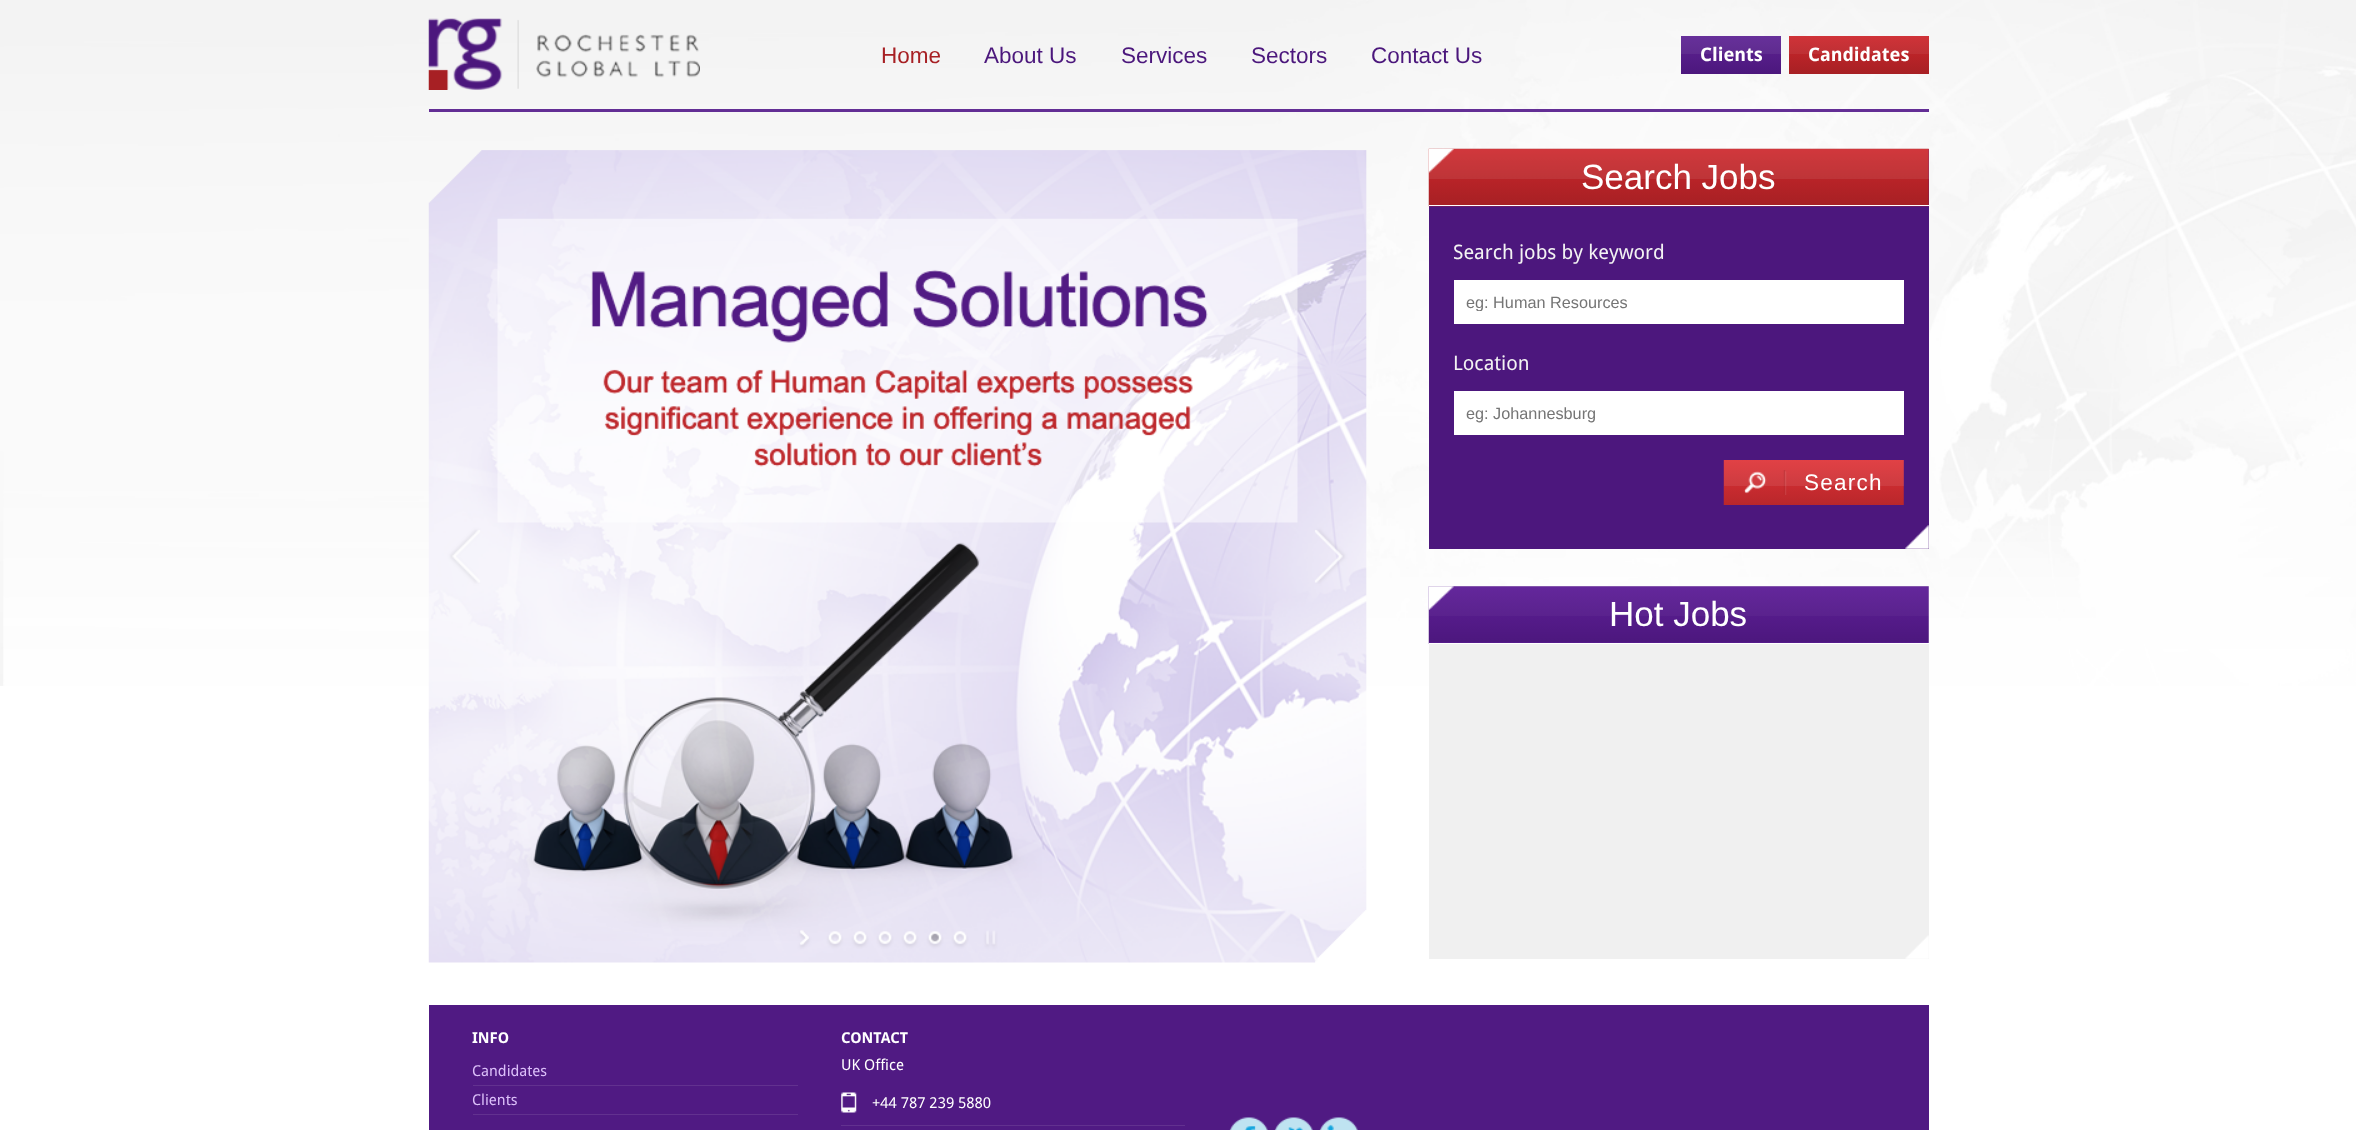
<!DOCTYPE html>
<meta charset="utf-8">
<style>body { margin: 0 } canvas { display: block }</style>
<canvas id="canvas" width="2356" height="1130"></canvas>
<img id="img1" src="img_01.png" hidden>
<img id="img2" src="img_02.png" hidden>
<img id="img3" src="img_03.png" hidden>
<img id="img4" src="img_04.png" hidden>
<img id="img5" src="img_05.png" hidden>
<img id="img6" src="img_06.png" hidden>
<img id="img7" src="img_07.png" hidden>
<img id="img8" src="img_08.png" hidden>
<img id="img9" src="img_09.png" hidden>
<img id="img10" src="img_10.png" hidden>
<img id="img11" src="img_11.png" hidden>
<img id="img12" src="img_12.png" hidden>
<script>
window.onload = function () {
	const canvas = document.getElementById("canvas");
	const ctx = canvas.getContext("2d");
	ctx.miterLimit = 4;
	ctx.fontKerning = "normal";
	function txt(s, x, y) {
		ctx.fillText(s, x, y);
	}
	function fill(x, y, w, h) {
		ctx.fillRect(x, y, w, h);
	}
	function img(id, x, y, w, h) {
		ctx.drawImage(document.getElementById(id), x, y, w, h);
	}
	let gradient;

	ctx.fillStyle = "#FFFFFF";
	fill(0, 0, 2356, 1130);
	img("img1", 0, 0, 2356, 686);
	ctx.fillStyle = "#632E95";
	fill(429, 109, 1500, 3);
	img("img2", 428, 18, 272, 72);
	gradient = ctx.createLinearGradient(1731, 36, 1731, 74);
	gradient.addColorStop(0, "#5E2494");
	gradient.addColorStop(1, "#4C177D");
	ctx.fillStyle = gradient;
	fill(1681, 36, 100, 38);
	ctx.fillStyle = "rgba(255, 255, 255, 0.06)";
	fill(1681, 36, 100, 18);
	gradient = ctx.createLinearGradient(1859, 36, 1859, 74);
	gradient.addColorStop(0, "#CD272C");
	gradient.addColorStop(1, "#A72024");
	ctx.fillStyle = gradient;
	fill(1789, 36, 140, 38);
	ctx.fillStyle = "rgba(255, 255, 255, 0.06)";
	fill(1789, 36, 140, 18);
	img("img3", 428, 150, 939, 813);
	ctx.fillStyle = "#4C177D";
	fill(1429, 149, 500, 400);
	img("img4", 1905, 525, 24, 24);
	img("img5", 1428, 148, 501, 59);
	ctx.fillStyle = "rgba(255, 255, 255, 0.08)";
	fill(1429, 149, 500, 30);
	ctx.fillStyle = "#FFFFFF";
	fill(1429, 205, 500, 1);
	fill(1454, 280, 450, 44);
	fill(1454, 391, 450, 44);
	img("img6", 1723, 460, 181, 45);
	ctx.fillStyle = "rgba(255, 255, 255, 0.08)";
	fill(1724, 460, 180, 26);
	ctx.fillStyle = "#F0F0F0";
	fill(1429, 586, 500, 373);
	img("img7", 1905, 935, 24, 24);
	img("img8", 1428, 586, 501, 58);
	ctx.fillStyle = "rgba(255, 255, 255, 0.03)";
	fill(1429, 586, 500, 30);
	ctx.fillStyle = "#FFFFFF";
	fill(1429, 643, 500, 1);
	ctx.fillStyle = "#501A83";
	fill(429, 1005, 1500, 125);
	ctx.fillStyle = "#62318F";
	fill(473, 1085, 325, 1);
	fill(473, 1114, 325, 1);
	img("img9", 841, 1092, 16, 21);
	fill(841, 1125, 344, 1);
	img("img10", 1229, 1117, 39, 13);
	img("img11", 1274, 1117, 39, 13);
	img("img12", 1319, 1117, 39, 13);
	ctx.font = "22.5px Liberation Sans";
	ctx.fillStyle = "#A72024";
	txt("Home", 881, 63);
	ctx.fillStyle = "#4B177C";
	txt("About Us", 984, 63);
	txt("Services", 1121, 63);
	txt("Sectors", 1251, 63);
	txt("Contact Us", 1371, 63);
	ctx.font = "bold 18.75px Droid Sans";
	ctx.fillStyle = "#FFFFFF";
	txt("Clients", 1700, 61);
	txt("Candidates", 1808, 61);
	ctx.font = "35px Liberation Sans";
	txt("Search Jobs", 1581, 189);
	ctx.font = "20px Droid Sans";
	ctx.fillStyle = "#F3F3F3";
	txt("Search jobs by keyword", 1453, 259);
	ctx.save();
	ctx.beginPath();
	ctx.rect(1466, 293, 425, 18);
	ctx.clip();
	ctx.font = "16.25px Liberation Sans";
	ctx.fillStyle = "#757575";
	txt("eg: Human Resources", 1466, 308);
	ctx.restore();
	txt("Location", 1453, 370);
	ctx.font = "16.25px Liberation Sans";
	ctx.fillStyle = "#757575";
	txt("eg: Johannesburg", 1466, 419);
	ctx.letterSpacing = "1.25px";
	ctx.font = "22.5px Liberation Sans";
	ctx.fillStyle = "#FFFFFF";
	txt("Search", 1804, 490);
	ctx.letterSpacing = "0px";
	ctx.font = "35px Liberation Sans";
	txt("Hot Jobs", 1609, 626);
	ctx.font = "bold 15px Droid Sans";
	txt("INFO", 472, 1043);
	ctx.font = "15px Droid Sans";
	ctx.fillStyle = "#DBBFF9";
	txt("Candidates", 472, 1076);
	txt("Clients", 472, 1105);
	ctx.font = "bold 15px Droid Sans";
	ctx.fillStyle = "#FFFFFF";
	txt("CONTACT", 841, 1043);
	ctx.font = "15px Droid Sans";
	txt("UK Office", 841, 1070);
	txt("+44 787 239 5880", 872, 1108);
};
</script>
